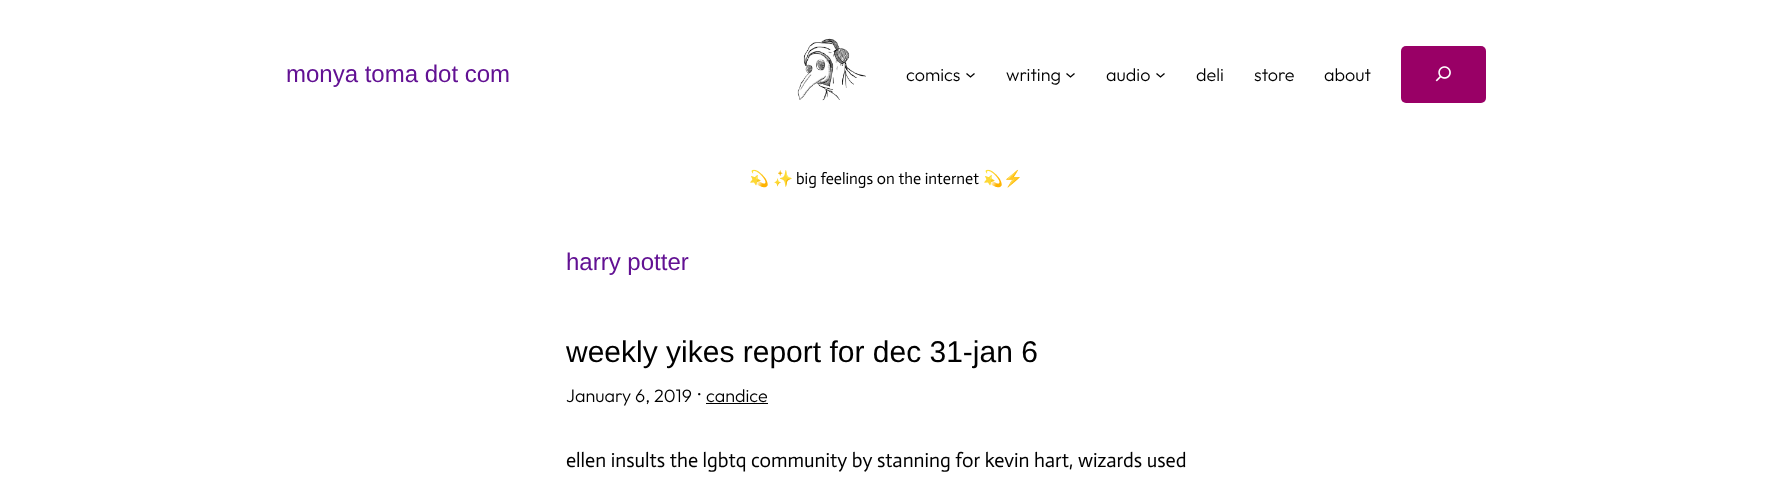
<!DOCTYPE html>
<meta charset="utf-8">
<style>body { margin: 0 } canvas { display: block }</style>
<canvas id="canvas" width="1772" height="480"></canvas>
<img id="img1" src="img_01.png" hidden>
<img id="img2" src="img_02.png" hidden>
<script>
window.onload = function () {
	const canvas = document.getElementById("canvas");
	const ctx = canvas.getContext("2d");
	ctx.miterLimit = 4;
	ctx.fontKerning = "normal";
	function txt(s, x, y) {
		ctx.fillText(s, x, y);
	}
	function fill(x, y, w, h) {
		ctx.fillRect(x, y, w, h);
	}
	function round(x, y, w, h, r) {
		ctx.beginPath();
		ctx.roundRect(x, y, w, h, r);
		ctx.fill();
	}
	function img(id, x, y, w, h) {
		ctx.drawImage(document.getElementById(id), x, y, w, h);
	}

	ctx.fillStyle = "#FFFFFF";
	fill(0, 0, 1772, 480);
	img("img1", 797, 38, 69, 63);
	ctx.beginPath();
	ctx.moveTo(966.5, 73.5);
	ctx.lineTo(970.5, 77);
	ctx.lineTo(974.5, 73.5);
	ctx.strokeStyle = "#000000";
	ctx.lineWidth = 1.3;
	ctx.stroke();
	ctx.beginPath();
	ctx.moveTo(1066.5, 73.5);
	ctx.lineTo(1070.5, 77);
	ctx.lineTo(1074.5, 73.5);
	ctx.stroke();
	ctx.beginPath();
	ctx.moveTo(1156.5, 73.5);
	ctx.lineTo(1160.5, 77);
	ctx.lineTo(1164.5, 73.5);
	ctx.stroke();
	ctx.fillStyle = "#990066";
	round(1401, 46, 85, 57, 5);
	img("img2", 1435, 66, 16, 16);
	ctx.fillStyle = "#000000";
	fill(706, 403, 62, 1);
	ctx.font = "24px Liberation Sans";
	ctx.fillStyle = "#621193";
	txt("monya toma dot com", 286, 82);
	ctx.font = "300 18px Outfit";
	ctx.fillStyle = "#000000";
	txt("comics", 906, 81);
	txt("writing", 1006, 81);
	txt("audio", 1106, 81);
	txt("deli", 1196, 81);
	txt("store", 1254, 81);
	txt("about", 1324, 81);
	ctx.font = "16px Noto Color Emoji";
	txt("💫", 749, 184);
	txt("✨", 773, 184);
	ctx.font = "16px Actor";
	txt("big feelings on the internet", 796, 184);
	ctx.font = "16px Noto Color Emoji";
	txt("💫⚡️", 983, 184);
	ctx.font = "24px Liberation Sans";
	ctx.fillStyle = "#621193";
	txt("harry potter", 566, 270);
	ctx.font = "30px Liberation Sans";
	ctx.fillStyle = "#000000";
	txt("weekly yikes report for dec 31-jan 6", 566, 362);
	ctx.font = "300 18px Outfit";
	txt("January 6, 2019", 566, 402);
	ctx.font = "20px Actor";
	txt("·", 697, 402);
	ctx.font = "300 18px Outfit";
	txt("candice", 706, 402);
	ctx.font = "20px Actor";
	txt("ellen insults the lgbtq community by stanning for kevin hart, wizards used", 566, 467);
};
</script>
